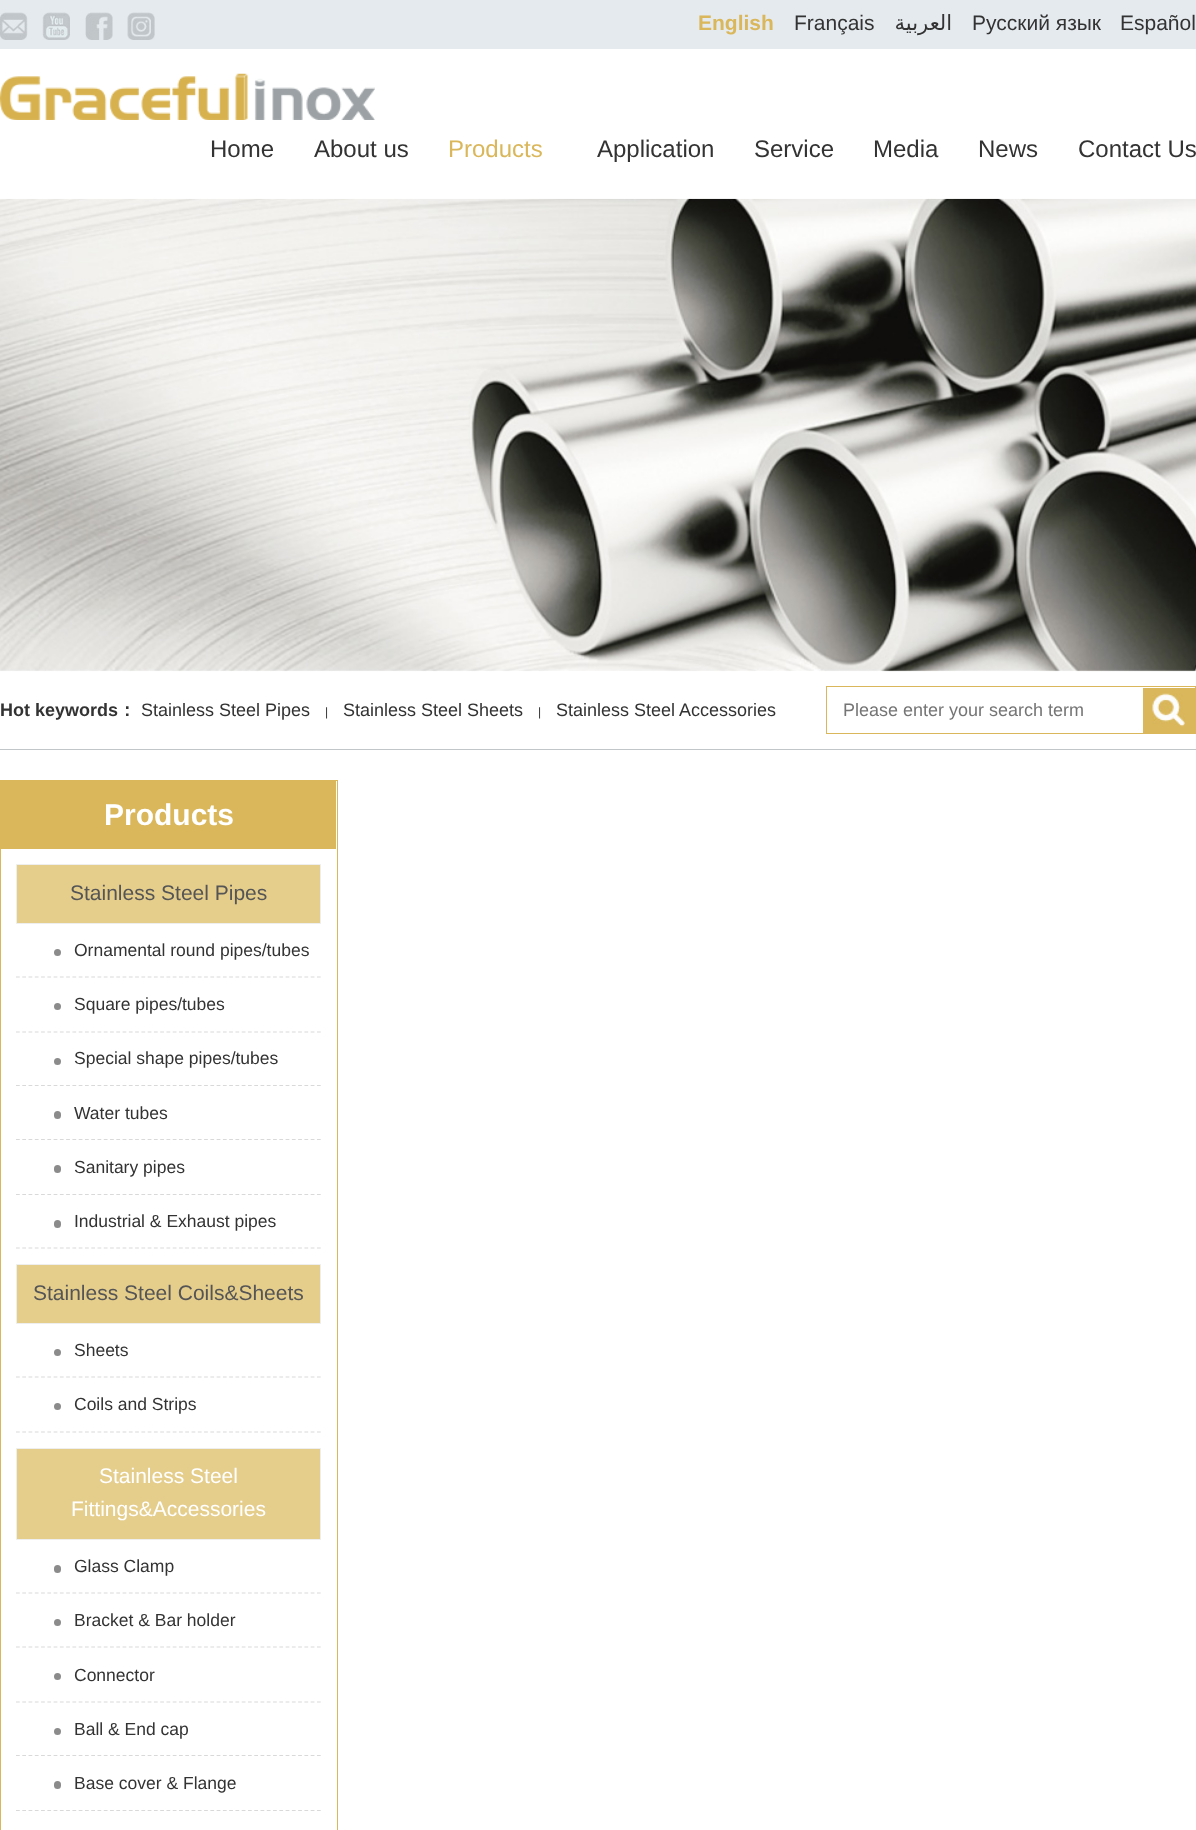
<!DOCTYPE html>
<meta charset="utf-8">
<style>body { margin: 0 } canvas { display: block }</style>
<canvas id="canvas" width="1196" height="1830"></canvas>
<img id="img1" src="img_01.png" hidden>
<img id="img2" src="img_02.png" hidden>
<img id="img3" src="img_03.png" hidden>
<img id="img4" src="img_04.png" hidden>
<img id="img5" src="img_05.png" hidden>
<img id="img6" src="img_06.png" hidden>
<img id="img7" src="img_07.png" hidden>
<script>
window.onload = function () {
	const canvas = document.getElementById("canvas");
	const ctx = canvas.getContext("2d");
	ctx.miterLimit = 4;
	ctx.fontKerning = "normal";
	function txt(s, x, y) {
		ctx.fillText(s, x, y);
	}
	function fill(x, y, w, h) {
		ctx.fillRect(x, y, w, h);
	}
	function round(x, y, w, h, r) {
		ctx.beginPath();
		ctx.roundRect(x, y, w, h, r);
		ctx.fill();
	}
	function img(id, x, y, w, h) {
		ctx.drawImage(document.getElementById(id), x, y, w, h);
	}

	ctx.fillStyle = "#FFFFFF";
	fill(0, 0, 1196, 1830);
	ctx.fillStyle = "#E5EAEE";
	fill(0, 0, 1196, 49);
	img("img1", 0, 12, 28, 28);
	img("img2", 42, 12, 28, 28);
	img("img3", 85, 12, 28, 28);
	img("img4", 127, 12, 28, 28);
	img("img5", 0, 73, 375, 47);
	img("img6", 0, 198, 1196, 474);
	ctx.fillStyle = "#C1C6C9";
	fill(0, 749, 1196, 1);
	ctx.strokeStyle = "#DAB75B";
	ctx.strokeRect(826.5, 686.5, 369, 47);
	ctx.fillStyle = "#DAB75B";
	fill(1143, 688, 52, 45);
	img("img7", 1152, 693, 33, 34);
	ctx.strokeRect(0.5, 780.5, 337, 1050);
	fill(1, 781, 335, 68);
	ctx.fillStyle = "#E5CD8C";
	ctx.beginPath();
	ctx.rect(16.5, 864.5, 304, 59);
	ctx.fill();
	ctx.strokeStyle = "#EEEEEE";
	ctx.stroke();
	ctx.beginPath();
	ctx.moveTo(16, 977);
	ctx.lineTo(321, 977);
	ctx.strokeStyle = "#D9D9D9";
	ctx.lineWidth = 1.2;
	ctx.setLineDash([3.75, 2.52]);
	ctx.stroke();
	ctx.fillStyle = "#8B8B8B";
	ctx.beginPath();
	ctx.arc(57.5, 952.5, 3.5, 0, Math.PI * 2);
	ctx.fill();
	ctx.beginPath();
	ctx.moveTo(16, 1032);
	ctx.lineTo(321, 1032);
	ctx.stroke();
	ctx.beginPath();
	ctx.arc(57.5, 1006.5, 3.5, 0, Math.PI * 2);
	ctx.fill();
	ctx.beginPath();
	ctx.moveTo(16, 1085.5);
	ctx.lineTo(321, 1085.5);
	ctx.stroke();
	ctx.beginPath();
	ctx.arc(57.5, 1061.5, 3.5, 0, Math.PI * 2);
	ctx.fill();
	ctx.beginPath();
	ctx.moveTo(16, 1139.5);
	ctx.lineTo(321, 1139.5);
	ctx.stroke();
	round(54, 1111, 7, 8, 3.5);
	ctx.beginPath();
	ctx.moveTo(16, 1194.5);
	ctx.lineTo(321, 1194.5);
	ctx.stroke();
	round(54, 1165, 7, 8, 3.5);
	ctx.beginPath();
	ctx.moveTo(16, 1248);
	ctx.lineTo(321, 1248);
	ctx.stroke();
	round(54, 1220, 7, 8, 3.5);
	ctx.fillStyle = "#E5CD8C";
	ctx.beginPath();
	ctx.rect(16.5, 1264.5, 304, 59);
	ctx.fill();
	ctx.strokeStyle = "#EEEEEE";
	ctx.lineWidth = 1;
	ctx.setLineDash([]);
	ctx.stroke();
	ctx.beginPath();
	ctx.moveTo(16, 1377);
	ctx.lineTo(321, 1377);
	ctx.strokeStyle = "#D9D9D9";
	ctx.lineWidth = 1.2;
	ctx.setLineDash([3.75, 2.52]);
	ctx.stroke();
	ctx.fillStyle = "#8B8B8B";
	ctx.beginPath();
	ctx.arc(57.5, 1352.5, 3.5, 0, Math.PI * 2);
	ctx.fill();
	ctx.beginPath();
	ctx.moveTo(16, 1432);
	ctx.lineTo(321, 1432);
	ctx.stroke();
	ctx.beginPath();
	ctx.arc(57.5, 1406.5, 3.5, 0, Math.PI * 2);
	ctx.fill();
	ctx.fillStyle = "#E5CD8C";
	ctx.beginPath();
	ctx.rect(16.5, 1448.5, 304, 91);
	ctx.fill();
	ctx.strokeStyle = "#EEEEEE";
	ctx.lineWidth = 1;
	ctx.setLineDash([]);
	ctx.stroke();
	ctx.beginPath();
	ctx.moveTo(16, 1593);
	ctx.lineTo(321, 1593);
	ctx.strokeStyle = "#D9D9D9";
	ctx.lineWidth = 1.2;
	ctx.setLineDash([3.75, 2.52]);
	ctx.stroke();
	ctx.fillStyle = "#8B8B8B";
	round(54, 1565, 7, 8, 3.5);
	ctx.beginPath();
	ctx.moveTo(16, 1647);
	ctx.lineTo(321, 1647);
	ctx.stroke();
	ctx.beginPath();
	ctx.arc(57.5, 1622.5, 3.5, 0, Math.PI * 2);
	ctx.fill();
	ctx.beginPath();
	ctx.moveTo(16, 1702);
	ctx.lineTo(321, 1702);
	ctx.stroke();
	ctx.beginPath();
	ctx.arc(57.5, 1676.5, 3.5, 0, Math.PI * 2);
	ctx.fill();
	ctx.beginPath();
	ctx.moveTo(16, 1755.5);
	ctx.lineTo(321, 1755.5);
	ctx.stroke();
	ctx.beginPath();
	ctx.arc(57.5, 1731.5, 3.5, 0, Math.PI * 2);
	ctx.fill();
	ctx.beginPath();
	ctx.moveTo(16, 1810.5);
	ctx.lineTo(321, 1810.5);
	ctx.stroke();
	round(54, 1781, 7, 8, 3.5);
	ctx.font = "bold 21px Liberation Sans";
	ctx.fillStyle = "#DAB75B";
	txt("English", 698, 30);
	ctx.font = "21px Liberation Sans";
	ctx.fillStyle = "#333333";
	txt("Français", 794, 30);
	ctx.direction = "rtl";
	ctx.font = "21px DejaVu Sans";
	txt("العربية", 952, 30);
	ctx.direction = "ltr";
	ctx.font = "21px Liberation Sans";
	txt("Русский язык", 972, 30);
	txt("Español", 1120, 30);
	ctx.font = "24px Liberation Sans";
	txt("Home", 210, 157);
	txt("About us", 314, 157);
	ctx.fillStyle = "#DAB75B";
	txt("Products", 448, 157);
	ctx.fillStyle = "#333333";
	txt("Application", 597, 157);
	txt("Service", 754, 157);
	txt("Media", 873, 157);
	txt("News", 978, 157);
	txt("Contact Us", 1078, 157);
	ctx.font = "bold 18px Liberation Sans";
	txt("Hot keywords", 0, 716);
	ctx.font = "bold 18px WenQuanYi Zen Hei";
	txt("：", 118, 716);
	ctx.font = "18px Liberation Sans";
	txt("Stainless Steel Pipes", 141, 716);
	ctx.font = "12px Liberation Sans";
	txt("|", 325, 716);
	ctx.font = "18px Liberation Sans";
	txt("Stainless Steel Sheets", 343, 716);
	ctx.font = "12px Liberation Sans";
	txt("|", 538, 716);
	ctx.font = "18px Liberation Sans";
	txt("Stainless Steel Accessories", 556, 716);
	ctx.fillStyle = "#757575";
	txt("Please enter your search term", 843, 716);
	ctx.font = "bold 30px Liberation Sans";
	ctx.fillStyle = "#FFFFFF";
	txt("Products", 104, 825);
	ctx.font = "21px Liberation Sans";
	ctx.fillStyle = "#555555";
	txt("Stainless Steel Pipes", 70, 900);
	ctx.font = "17.5px Liberation Sans";
	ctx.fillStyle = "#333333";
	txt("Ornamental round pipes/tubes", 74, 956);
	txt("Square pipes/tubes", 74, 1010);
	txt("Special shape pipes/tubes", 74, 1064);
	txt("Water tubes", 74, 1119);
	txt("Sanitary pipes", 74, 1173);
	txt("Industrial & Exhaust pipes", 74, 1227);
	ctx.font = "21px Liberation Sans";
	ctx.fillStyle = "#555555";
	txt("Stainless Steel Coils&Sheets", 33, 1300);
	ctx.font = "17.5px Liberation Sans";
	ctx.fillStyle = "#333333";
	txt("Sheets", 74, 1356);
	txt("Coils and Strips", 74, 1410);
	ctx.font = "21px Liberation Sans";
	ctx.fillStyle = "#FFFFFF";
	txt("Stainless Steel", 99, 1483);
	txt("Fittings&Accessories", 71, 1516);
	ctx.font = "17.5px Liberation Sans";
	ctx.fillStyle = "#333333";
	txt("Glass Clamp", 74, 1572);
	txt("Bracket & Bar holder", 74, 1626);
	txt("Connector", 74, 1681);
	txt("Ball & End cap", 74, 1735);
	txt("Base cover & Flange", 74, 1789);
};
</script>
